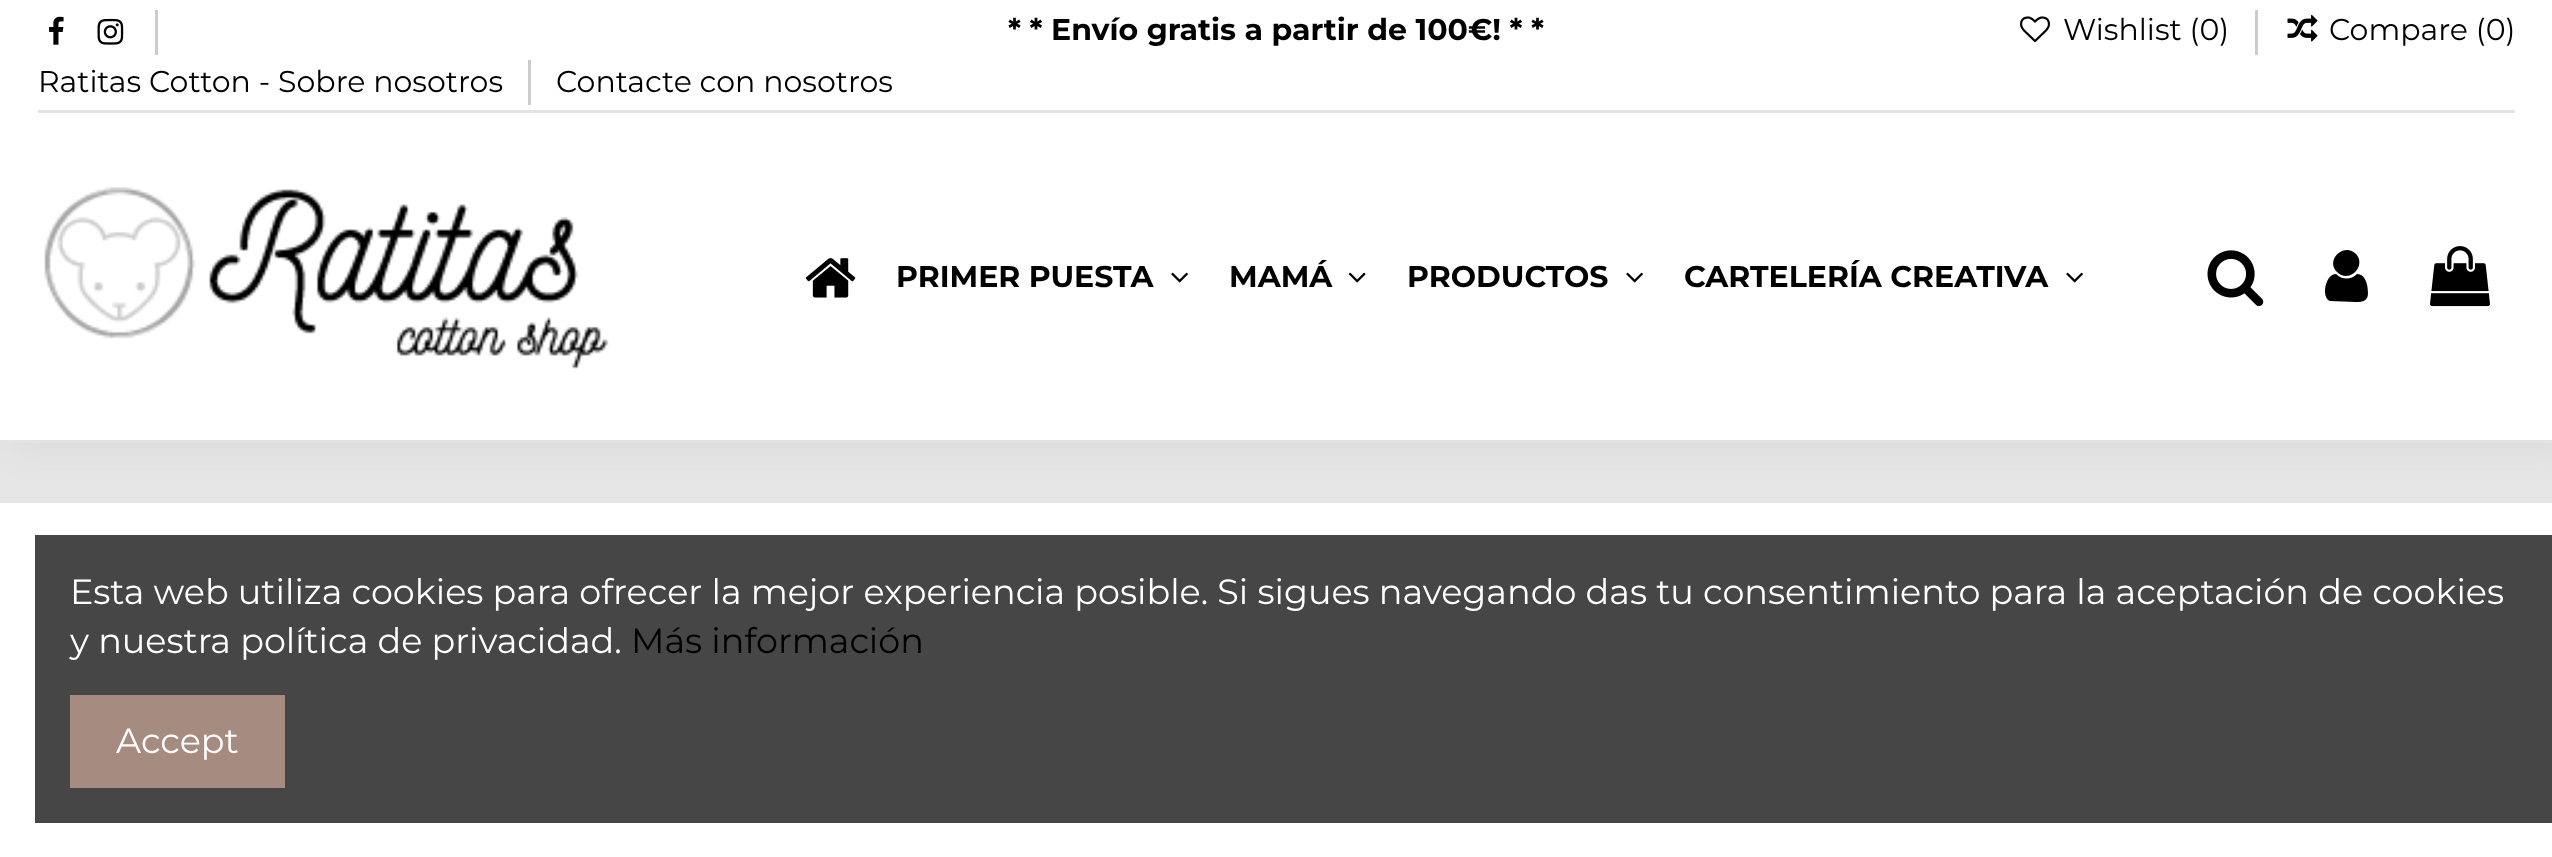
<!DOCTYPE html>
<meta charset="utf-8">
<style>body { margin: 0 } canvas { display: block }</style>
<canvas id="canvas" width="2552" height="857"></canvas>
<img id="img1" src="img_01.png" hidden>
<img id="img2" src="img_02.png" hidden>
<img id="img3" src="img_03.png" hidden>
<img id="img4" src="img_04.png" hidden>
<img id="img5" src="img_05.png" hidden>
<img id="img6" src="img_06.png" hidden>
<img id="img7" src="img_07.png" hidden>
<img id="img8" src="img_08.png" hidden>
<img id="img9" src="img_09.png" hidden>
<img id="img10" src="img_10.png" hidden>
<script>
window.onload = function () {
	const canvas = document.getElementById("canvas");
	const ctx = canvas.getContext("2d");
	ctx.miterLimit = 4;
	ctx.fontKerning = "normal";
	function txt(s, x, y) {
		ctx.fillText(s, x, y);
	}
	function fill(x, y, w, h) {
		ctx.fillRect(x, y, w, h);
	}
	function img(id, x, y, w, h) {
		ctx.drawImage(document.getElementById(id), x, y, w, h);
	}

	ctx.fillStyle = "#FFFFFF";
	fill(0, 0, 2552, 857);
	ctx.fillStyle = "#E6E6E6";
	fill(0, 443, 2552, 60);
	ctx.fillStyle = "rgba(61, 57, 57, 0.09)";
	ctx.filter = "blur(19px)";
	ctx.beginPath();
	ctx.rect(13, 0, 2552, 443);
	ctx.fill();
	ctx.filter = "none";
	ctx.fillStyle = "#FFFFFF";
	fill(0, 0, 2552, 440);
	ctx.fillStyle = "#E3E3E3";
	fill(0, 440, 2552, 3);
	fill(38, 110, 2477, 3);
	img("img1", 2020, 16, 30, 27);
	ctx.fillStyle = "#CCCCCC";
	fill(2255, 10, 3, 45);
	img("img2", 2287, 14, 31, 28);
	img("img3", 49, 16, 15, 29);
	img("img4", 97, 18, 27, 27);
	fill(155, 10, 3, 45);
	fill(528, 60, 3, 45);
	img("img5", 44, 187, 565, 182);
	img("img6", 805, 258, 51, 40);
	img("img7", 1171, 272, 17, 11);
	img("img8", 1348, 272, 18, 11);
	img("img7", 1626, 272, 17, 11);
	img("img7", 2066, 272, 17, 11);
	img("img9", 2207, 250, 57, 57);
	ctx.fillStyle = "#000000";
	ctx.beginPath();
	ctx.moveTo(2368, 293);
	ctx.bezierCurveTo(2368, 301, 2363, 302, 2356, 302);
	ctx.lineTo(2330, 301);
	ctx.bezierCurveTo(2321, 298, 2325, 274, 2336, 274);
	ctx.bezierCurveTo(2342, 280, 2351, 280, 2357, 274);
	ctx.bezierCurveTo(2366, 274, 2368, 286, 2368, 293);
	ctx.closePath();
	ctx.moveTo(2356, 254);
	ctx.bezierCurveTo(2367, 266, 2349, 284, 2337, 272);
	ctx.bezierCurveTo(2325, 260, 2344, 242, 2356, 254);
	ctx.closePath();
	ctx.fill();
	img("img10", 2430, 246, 60, 61);
	ctx.fillStyle = "#464646";
	fill(35, 535, 2517, 288);
	ctx.fillStyle = "#A68B80";
	fill(70, 695, 215, 93);
	ctx.font = "bold 30px Montserrat";
	ctx.fillStyle = "#000000";
	txt("* * Envío gratis a partir de 100€! * *", 1008, 40);
	ctx.font = "30px Montserrat";
	txt("Wishlist (0)", 2063, 40);
	txt("Compare (0)", 2329, 40);
	txt("Ratitas Cotton - Sobre nosotros", 38, 92);
	txt("Contacte con nosotros", 556, 92);
	ctx.font = "bold 30px Montserrat";
	txt("PRIMER PUESTA", 896, 287);
	txt("MAMÁ", 1229, 287);
	txt("PRODUCTOS", 1407, 287);
	txt("CARTELERÍA CREATIVA", 1684, 287);
	ctx.font = "35px Montserrat";
	ctx.fillStyle = "#FFFFFF";
	txt("Esta web utiliza cookies para ofrecer la mejor experiencia posible. Si sigues navegando das tu consentimiento para la aceptación de cookies", 70, 604);
	txt("y nuestra política de privacidad.", 70, 653);
	ctx.fillStyle = "#000000";
	txt("Más información", 631, 653);
	ctx.fillStyle = "#FFFFFF";
	txt("Accept", 116, 753);
};
</script>
